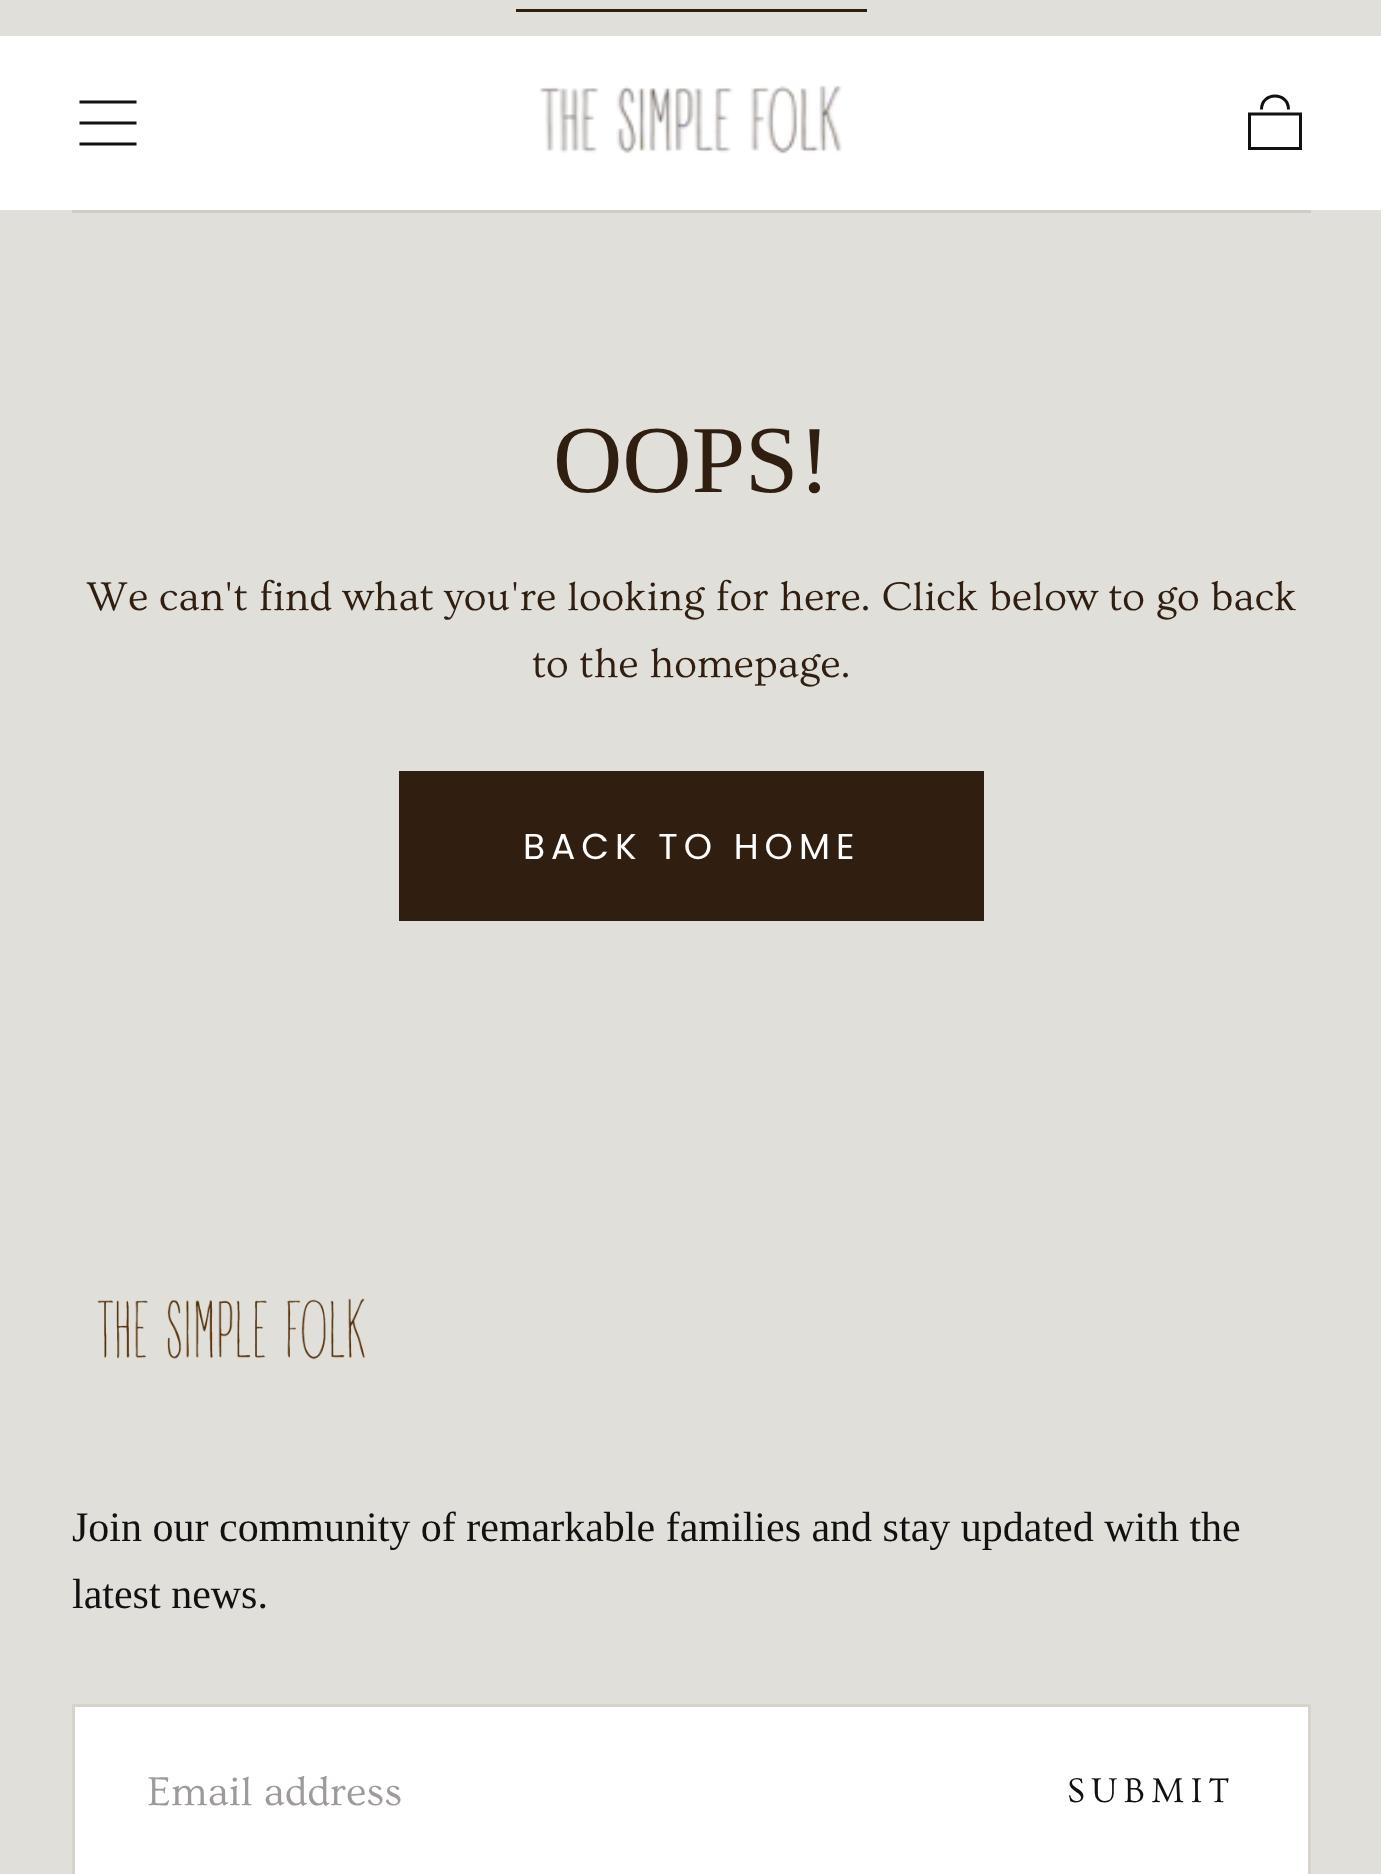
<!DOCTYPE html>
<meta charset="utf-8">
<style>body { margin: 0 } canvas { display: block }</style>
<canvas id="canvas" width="1381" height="1874"></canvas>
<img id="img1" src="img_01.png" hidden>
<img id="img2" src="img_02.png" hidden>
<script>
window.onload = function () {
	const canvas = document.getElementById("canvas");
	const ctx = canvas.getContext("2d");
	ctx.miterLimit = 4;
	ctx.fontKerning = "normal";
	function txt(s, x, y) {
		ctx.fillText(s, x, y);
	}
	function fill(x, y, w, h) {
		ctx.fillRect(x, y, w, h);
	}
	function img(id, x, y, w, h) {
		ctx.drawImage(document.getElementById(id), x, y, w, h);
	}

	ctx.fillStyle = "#E1DFD9";
	fill(0, 0, 1381, 1874);
	ctx.fillStyle = "#301E10";
	fill(516, 9, 351, 3);
	ctx.fillStyle = "#FFFFFF";
	fill(0, 36, 1381, 174);
	ctx.beginPath();
	ctx.moveTo(81, 102);
	ctx.lineTo(135, 102);
	ctx.moveTo(81, 123);
	ctx.lineTo(135, 123);
	ctx.moveTo(81, 144);
	ctx.lineTo(135, 144);
	ctx.strokeStyle = "#111111";
	ctx.lineWidth = 3;
	ctx.lineCap = "square";
	ctx.stroke();
	img("img1", 539, 85, 303, 69);
	ctx.beginPath();
	ctx.moveTo(1300.5, 148.5);
	ctx.lineTo(1249.5, 148.5);
	ctx.lineTo(1249.5, 114);
	ctx.lineTo(1300.5, 114);
	ctx.closePath();
	ctx.moveTo(1288.5, 109.5);
	ctx.bezierCurveTo(1288.5, 91.5, 1261.5, 91.5, 1261.5, 109.5);
	ctx.lineCap = "butt";
	ctx.stroke();
	ctx.fillStyle = "#CFCCC5";
	fill(72, 210, 1239, 3);
	ctx.fillStyle = "#301E10";
	fill(399, 771, 585, 150);
	img("img2", 97, 1298, 268, 62);
	ctx.fillStyle = "#FFFFFF";
	ctx.beginPath();
	ctx.rect(73.5, 1705.5, 1236, 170);
	ctx.fill();
	ctx.strokeStyle = "#D6D3CA";
	ctx.stroke();
	ctx.font = "96px Liberation Serif";
	ctx.fillStyle = "#301E10";
	txt("OOPS!", 553, 492);
	ctx.font = "42px Ovo";
	txt("We can't find what you're looking for here. Click below to go back", 86, 610);
	txt("to the homepage.", 532, 677);
	ctx.letterSpacing = "6px";
	ctx.font = "36px Poppins";
	ctx.fillStyle = "#FFFFFF";
	txt("BACK TO HOME", 523, 859);
	ctx.letterSpacing = "0px";
	ctx.font = "42px Liberation Serif";
	ctx.fillStyle = "#111111";
	txt("Join our community of remarkable families and stay updated with the", 72, 1541);
	txt("latest news.", 72, 1608);
	ctx.font = "42px Ovo";
	ctx.fillStyle = "#9E9A99";
	txt("Email address", 147, 1805);
	ctx.letterSpacing = "6px";
	ctx.font = "36px Ovo";
	ctx.fillStyle = "#111111";
	txt("SUBMIT", 1067, 1802);
};
</script>
